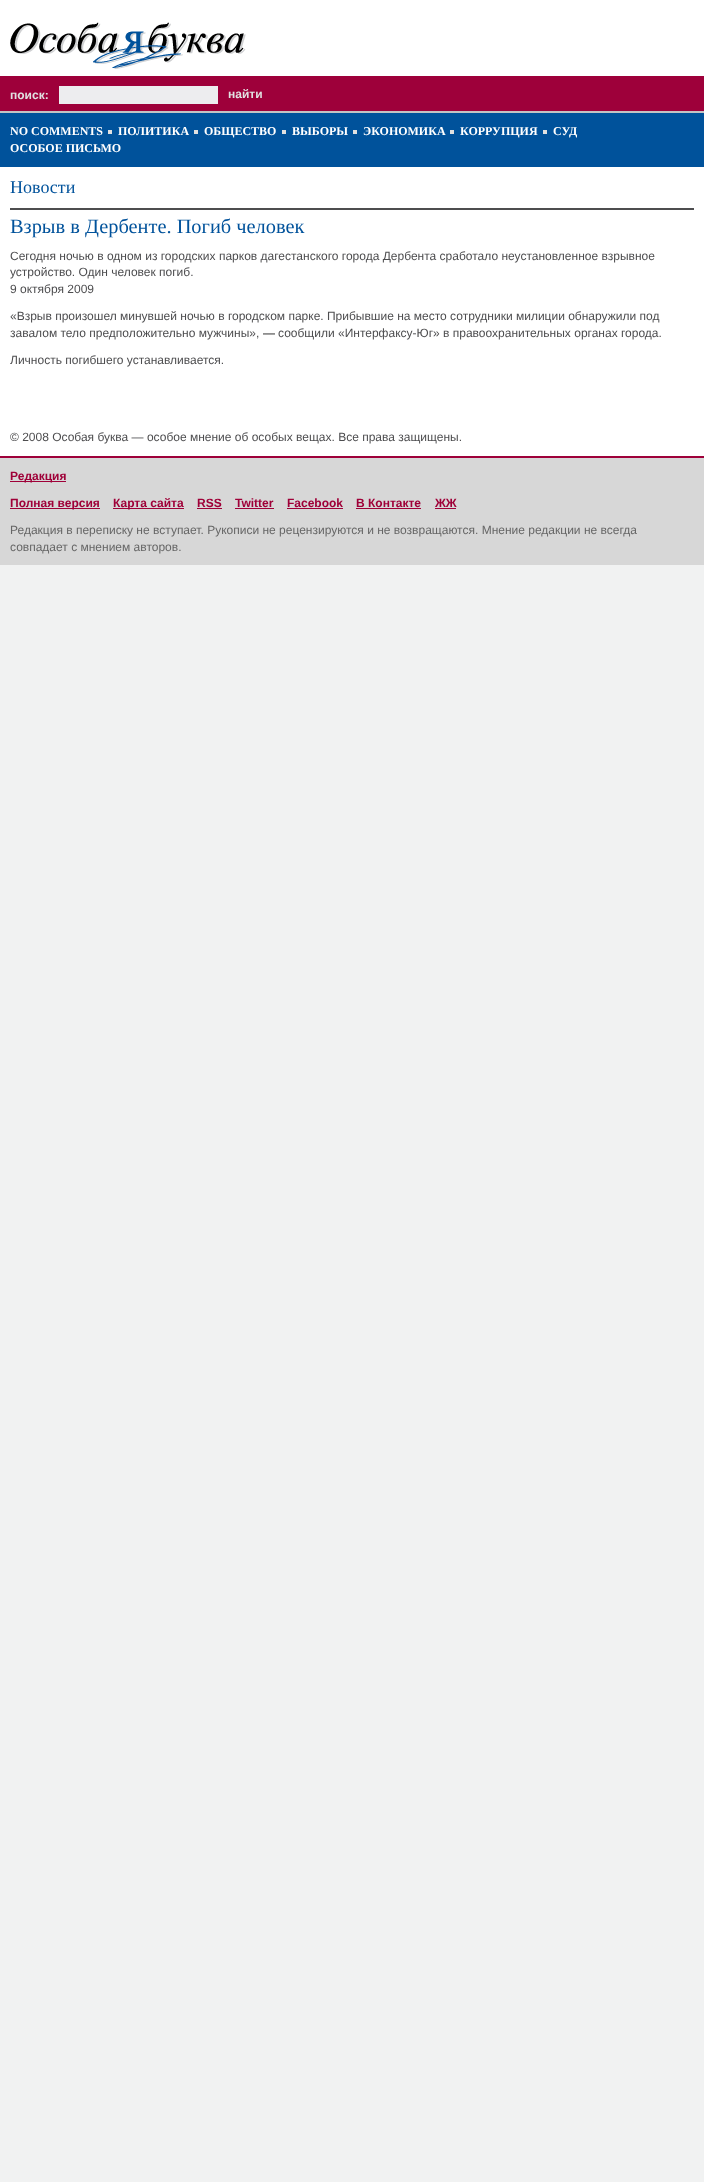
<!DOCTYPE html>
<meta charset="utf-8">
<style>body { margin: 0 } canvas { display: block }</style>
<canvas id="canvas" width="704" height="2182"></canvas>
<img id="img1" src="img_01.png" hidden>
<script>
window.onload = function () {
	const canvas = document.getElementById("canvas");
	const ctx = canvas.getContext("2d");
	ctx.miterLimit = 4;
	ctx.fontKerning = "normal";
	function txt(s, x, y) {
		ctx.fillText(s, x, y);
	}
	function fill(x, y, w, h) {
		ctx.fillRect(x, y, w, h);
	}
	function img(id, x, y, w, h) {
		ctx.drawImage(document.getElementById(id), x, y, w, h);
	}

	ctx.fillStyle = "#F1F2F2";
	fill(0, 0, 704, 2182);
	ctx.fillStyle = "#FFFFFF";
	fill(0, 0, 704, 456);
	img("img1", 10, 22, 236, 47);
	ctx.fillStyle = "#9E003A";
	fill(0, 76, 704, 35);
	ctx.fillStyle = "#C4C4C4";
	fill(0, 111, 704, 2);
	ctx.fillStyle = "#EDEDEF";
	fill(59, 86, 159, 18);
	ctx.fillStyle = "#00529B";
	fill(0, 113, 704, 54);
	ctx.fillStyle = "#E1E1E1";
	fill(108, 130, 4, 4);
	fill(194, 130, 4, 4);
	fill(282, 130, 4, 4);
	fill(353, 130, 4, 4);
	fill(450, 130, 4, 4);
	fill(543, 130, 4, 4);
	ctx.fillStyle = "#4D4D4F";
	fill(10, 208, 684, 2);
	ctx.fillStyle = "#D7D7D7";
	fill(0, 458, 704, 107);
	ctx.fillStyle = "#9E0039";
	fill(0, 456, 704, 2);
	ctx.fillStyle = "#9F0038";
	fill(10, 481, 56, 1);
	fill(10, 508, 90, 1);
	fill(113, 508, 71, 1);
	fill(197, 508, 25, 1);
	fill(235, 508, 39, 1);
	fill(287, 508, 56, 1);
	fill(356, 508, 65, 1);
	fill(435, 508, 21, 1);
	ctx.font = "bold 12px Liberation Sans";
	ctx.fillStyle = "#E1E1E1";
	txt("поиск:", 10, 99);
	txt("найти", 228, 98);
	ctx.font = "bold 12px Liberation Serif";
	ctx.fillStyle = "#FFFFFF";
	txt("NO COMMENTS", 10, 135);
	txt("ПОЛИТИКА", 118, 135);
	txt("ОБЩЕСТВО", 204, 135);
	txt("ВЫБОРЫ", 292, 135);
	txt("ЭКОНОМИКА", 363, 135);
	txt("КОРРУПЦИЯ", 460, 135);
	txt("СУД", 553, 135);
	txt("ОСОБОЕ ПИСЬМО", 10, 152);
	ctx.font = "18px Liberation Serif";
	ctx.fillStyle = "#00529B";
	txt("Новости", 10, 193);
	ctx.font = "20.4px Liberation Serif";
	txt("Взрыв в Дербенте. Погиб человек", 10, 233);
	ctx.font = "12px Liberation Sans";
	ctx.fillStyle = "#4D4D4F";
	txt("Сегодня ночью в одном из городских парков дагестанского города Дербента сработало неустановленное взрывное", 10, 260);
	txt("устройство. Один человек погиб.", 10, 276);
	txt("9 октября 2009", 10, 293);
	txt("«Взрыв произошел минувшей ночью в городском парке. Прибывшие на место сотрудники милиции обнаружили под", 10, 320);
	txt("завалом тело предположительно мужчины»,", 10, 337);
	ctx.fillStyle = "#000000";
	txt("—", 263, 337);
	ctx.fillStyle = "#4D4D4F";
	txt("сообщили «Интерфаксу-Юг» в правоохранительных органах города.", 278, 337);
	txt("Личность погибшего устанавливается.", 10, 364);
	txt("© 2008 Особая буква — особое мнение об особых вещах. Все права защищены.", 10, 441);
	ctx.font = "bold 12px Liberation Sans";
	ctx.fillStyle = "#9F0038";
	txt("Редакция", 10, 480);
	txt("Полная версия", 10, 507);
	txt("Карта сайта", 113, 507);
	txt("RSS", 197, 507);
	txt("Twitter", 235, 507);
	txt("Facebook", 287, 507);
	txt("В Контакте", 356, 507);
	txt("ЖЖ", 435, 507);
	ctx.font = "12px Liberation Sans";
	ctx.fillStyle = "#666666";
	txt("Редакция в переписку не вступает. Рукописи не рецензируются и не возвращаются. Мнение редакции не всегда", 10, 534);
	txt("совпадает с мнением авторов.", 10, 551);
};
</script>
